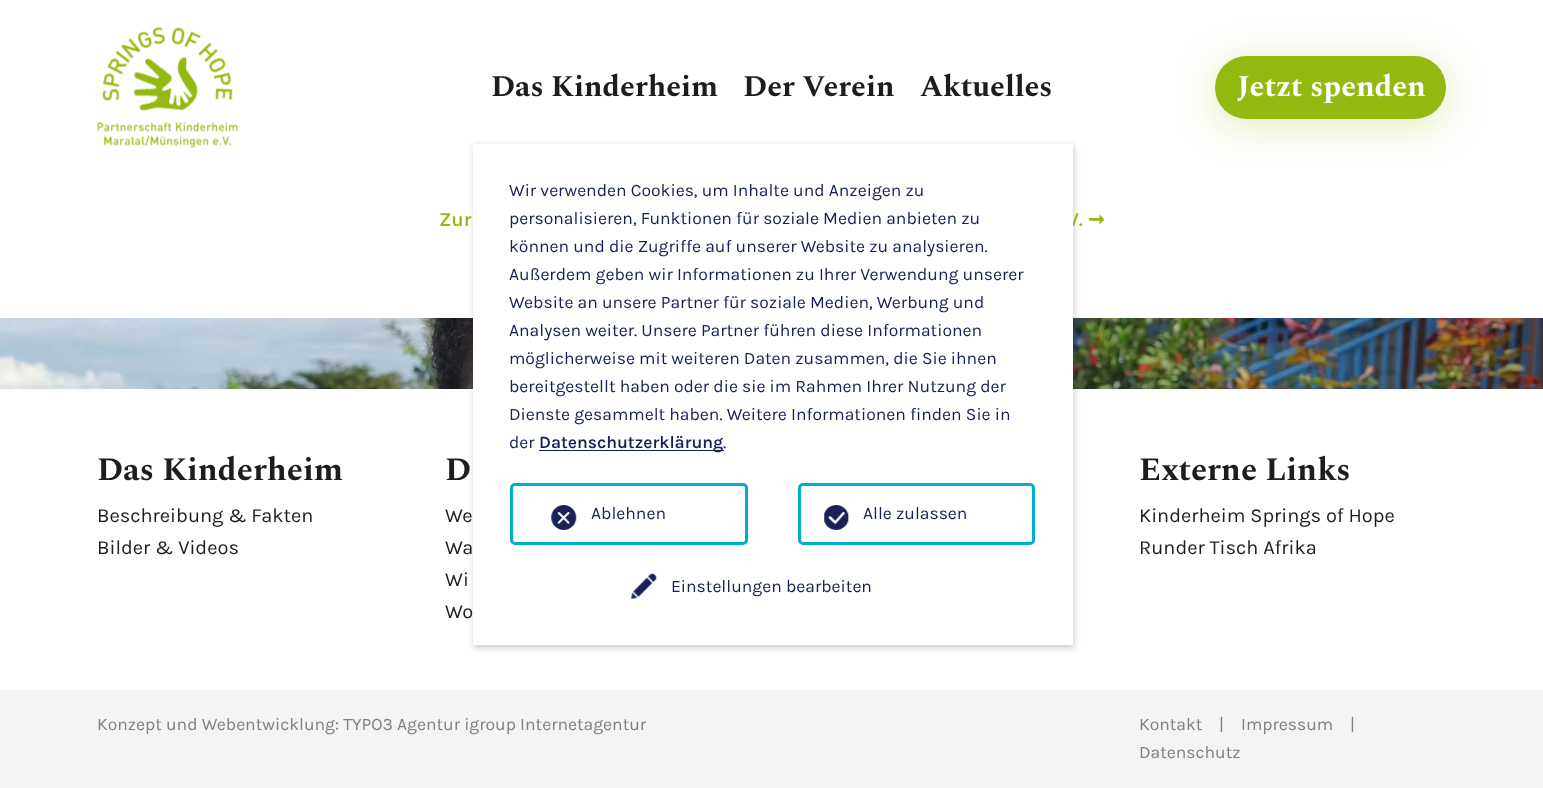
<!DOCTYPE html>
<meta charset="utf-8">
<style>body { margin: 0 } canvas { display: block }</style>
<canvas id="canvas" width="1543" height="788"></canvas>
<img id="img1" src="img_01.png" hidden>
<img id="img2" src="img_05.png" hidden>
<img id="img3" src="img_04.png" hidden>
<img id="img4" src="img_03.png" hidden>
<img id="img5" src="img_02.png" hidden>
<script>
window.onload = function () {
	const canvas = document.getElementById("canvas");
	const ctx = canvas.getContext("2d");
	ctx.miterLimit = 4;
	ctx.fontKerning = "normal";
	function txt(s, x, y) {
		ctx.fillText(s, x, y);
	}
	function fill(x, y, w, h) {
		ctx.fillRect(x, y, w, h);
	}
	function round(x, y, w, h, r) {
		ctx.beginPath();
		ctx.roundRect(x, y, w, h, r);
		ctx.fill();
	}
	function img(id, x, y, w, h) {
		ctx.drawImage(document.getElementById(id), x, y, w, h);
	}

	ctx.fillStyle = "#FFFFFF";
	fill(0, 0, 1543, 788);
	img("img1", 97, 27, 141, 121);
	ctx.fillStyle = "rgba(148, 185, 17, 0.3)";
	ctx.filter = "blur(19px)";
	ctx.beginPath();
	ctx.roundRect(1215, 63, 231, 62, 31);
	ctx.fill();
	ctx.filter = "none";
	ctx.fillStyle = "#94B911";
	round(1215, 56, 231, 63, 31.5);
	img("img2", 0, 318, 1543, 71);
	ctx.fillStyle = "rgba(0, 0, 0, 0.2)";
	ctx.filter = "blur(3px)";
	ctx.beginPath();
	ctx.rect(474, 146, 600, 502);
	ctx.fill();
	ctx.filter = "none";
	ctx.fillStyle = "#F4F4F4";
	fill(0, 690, 1543, 98);
	ctx.font = "bold 30px Spectral";
	ctx.fillStyle = "#1D1D1F";
	txt("Das Kinderheim", 491, 96);
	txt("Der Verein", 743, 96);
	txt("Aktuelles", 920, 96);
	ctx.fillStyle = "#FEFEFE";
	txt("Jetzt spenden", 1237, 96);
	ctx.font = "600 20px Karla";
	ctx.fillStyle = "#94B911";
	txt("Zur", 439, 226);
	txt("V.", 1067, 226);
	ctx.fillStyle = "#FFFFFF";
	fill(473, 144, 600, 501);
	img("img3", 631, 573, 26, 26);
	ctx.font = "17.5px Karla";
	ctx.fillStyle = "#161F57";
	txt("Einstellungen bearbeiten", 671, 592);
	ctx.beginPath();
	ctx.roundRect(799.5, 484.5, 234, 59, 3.5);
	ctx.strokeStyle = "#00AFCB";
	ctx.lineWidth = 3;
	ctx.stroke();
	img("img4", 824, 505, 26, 25);
	txt("Alle zulassen", 863, 519);
	ctx.beginPath();
	ctx.roundRect(511.5, 484.5, 235, 59, 3.5);
	ctx.stroke();
	img("img5", 551, 505, 26, 25);
	txt("Ablehnen", 591, 519);
	fill(539, 450, 185, 1);
	ctx.font = "600 17.5px Karla";
	txt("Datenschutzerklärung", 539, 448);
	ctx.font = "17.5px Karla";
	txt(".", 723, 448);
	txt("der", 509, 448);
	txt("Dienste gesammelt haben. Weitere Informationen finden Sie in", 509, 420);
	txt("bereitgestellt haben oder die sie im Rahmen Ihrer Nutzung der", 509, 392);
	txt("möglicherweise mit weiteren Daten zusammen, die Sie ihnen", 509, 364);
	txt("Analysen weiter. Unsere Partner führen diese Informationen", 509, 336);
	txt("Website an unsere Partner für soziale Medien, Werbung und", 509, 308);
	txt("Außerdem geben wir Informationen zu Ihrer Verwendung unserer", 509, 280);
	txt("können und die Zugriffe auf unserer Website zu analysieren.", 509, 252);
	txt("personalisieren, Funktionen für soziale Medien anbieten zu", 509, 224);
	txt("Wir verwenden Cookies, um Inhalte und Anzeigen zu", 509, 196);
	ctx.font = "bold 20px DejaVu Sans";
	ctx.fillStyle = "#94B911";
	txt("➞", 1088, 226);
	ctx.font = "bold 32.5px Spectral";
	ctx.fillStyle = "#1D1D1F";
	txt("Das Kinderheim", 97, 480);
	ctx.font = "20px Karla";
	txt("Beschreibung & Fakten", 97, 522);
	txt("Bilder & Videos", 97, 554);
	ctx.font = "bold 32.5px Spectral";
	txt("D", 445, 480);
	ctx.font = "20px Karla";
	txt("We", 445, 522);
	txt("Wa", 445, 554);
	txt("Wi", 445, 586);
	txt("Wo", 445, 618);
	ctx.font = "bold 32.5px Spectral";
	txt("Externe Links", 1139, 480);
	ctx.font = "20px Karla";
	txt("Kinderheim Springs of Hope", 1139, 522);
	txt("Runder Tisch Afrika", 1139, 554);
	ctx.font = "17.5px Karla";
	ctx.fillStyle = "#7F7F7F";
	txt("Konzept und Webentwicklung: TYPO3 Agentur igroup Internetagentur", 97, 730);
	txt("Kontakt", 1139, 730);
	txt("|", 1219, 730);
	txt("Impressum", 1241, 730);
	txt("|", 1350, 730);
	txt("Datenschutz", 1139, 758);
};
</script>
